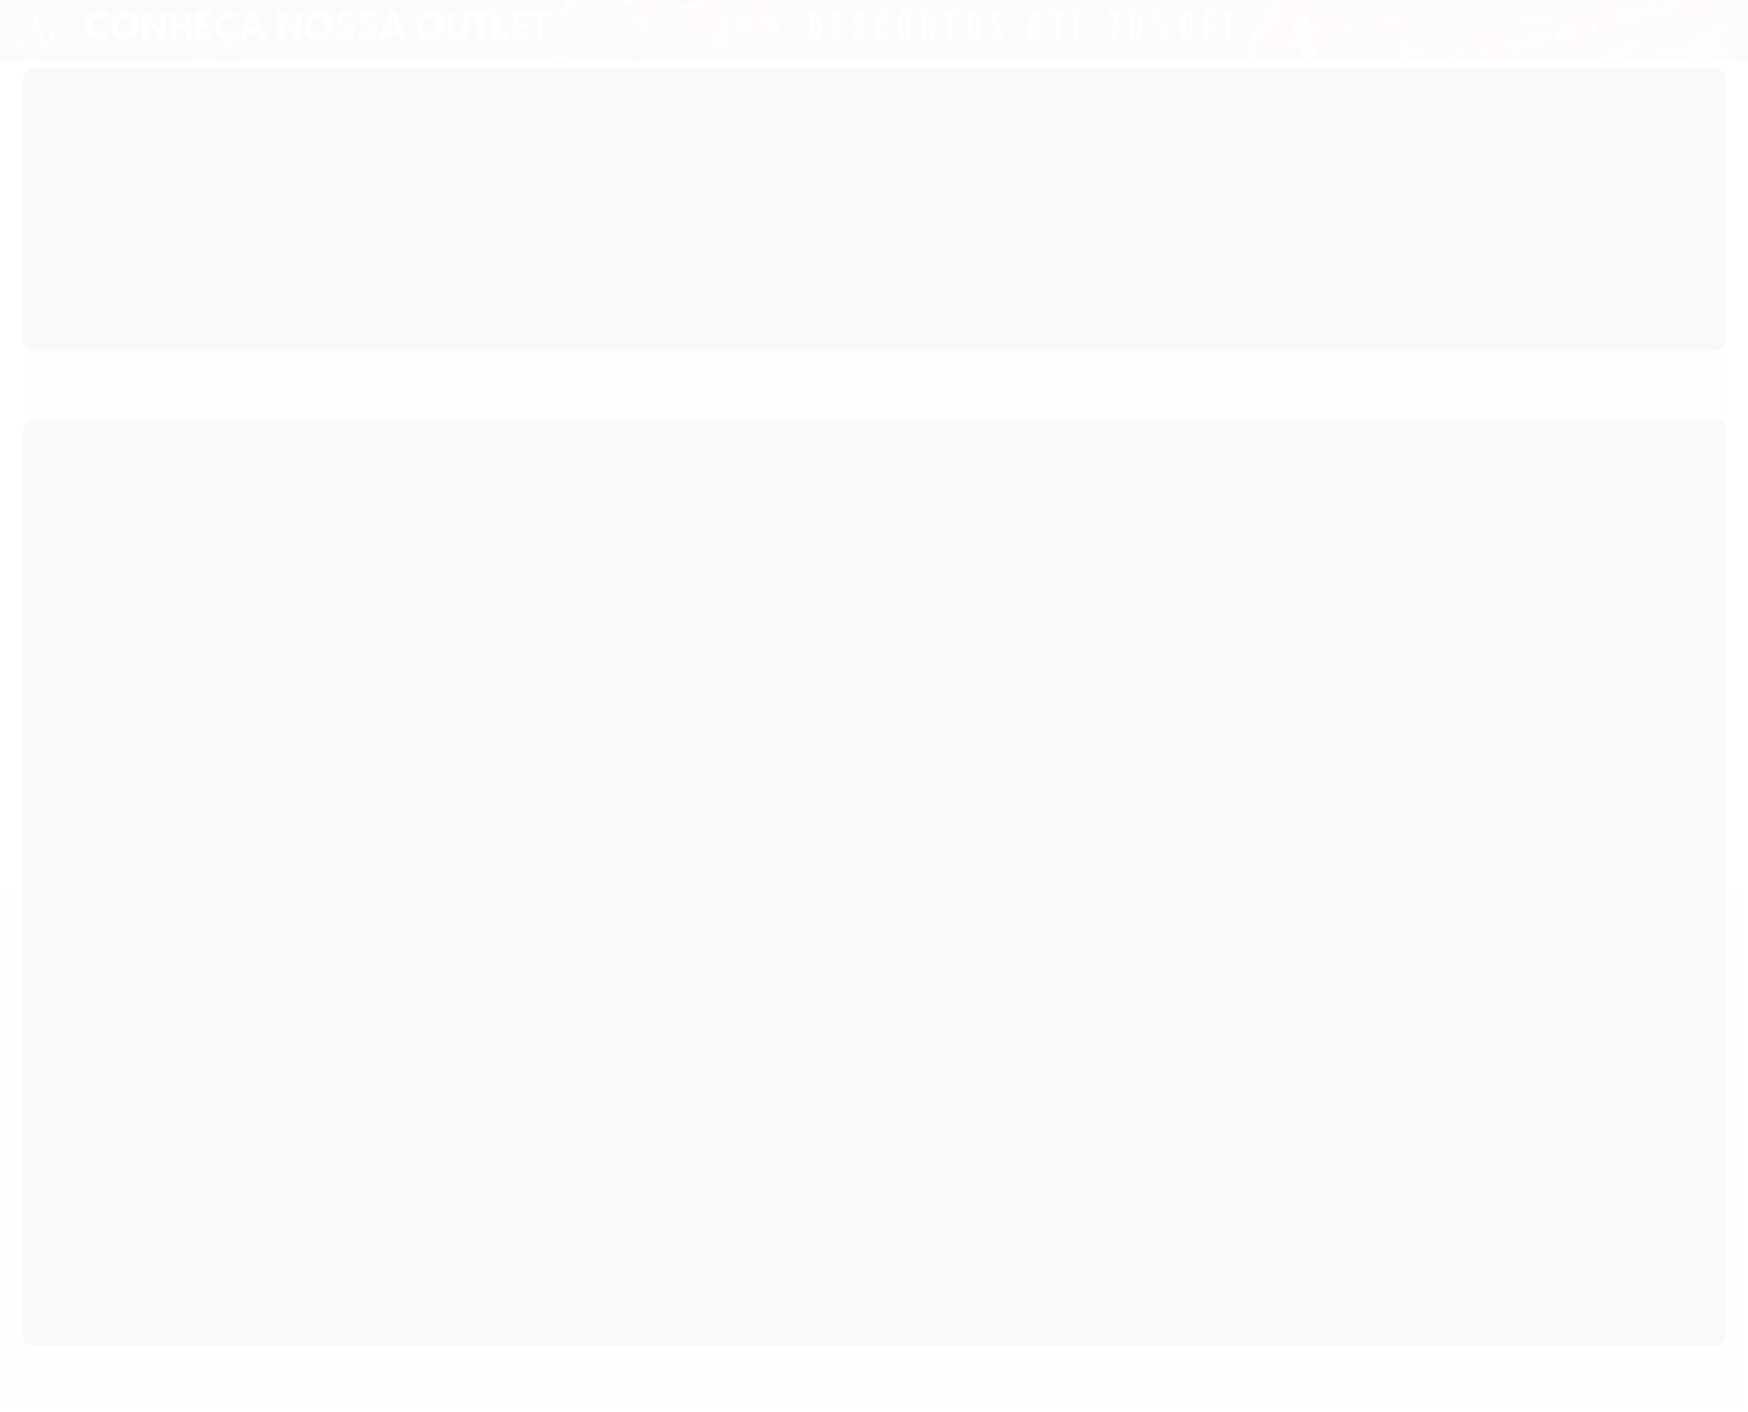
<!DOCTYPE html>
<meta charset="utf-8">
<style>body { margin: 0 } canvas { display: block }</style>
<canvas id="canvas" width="1748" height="1412"></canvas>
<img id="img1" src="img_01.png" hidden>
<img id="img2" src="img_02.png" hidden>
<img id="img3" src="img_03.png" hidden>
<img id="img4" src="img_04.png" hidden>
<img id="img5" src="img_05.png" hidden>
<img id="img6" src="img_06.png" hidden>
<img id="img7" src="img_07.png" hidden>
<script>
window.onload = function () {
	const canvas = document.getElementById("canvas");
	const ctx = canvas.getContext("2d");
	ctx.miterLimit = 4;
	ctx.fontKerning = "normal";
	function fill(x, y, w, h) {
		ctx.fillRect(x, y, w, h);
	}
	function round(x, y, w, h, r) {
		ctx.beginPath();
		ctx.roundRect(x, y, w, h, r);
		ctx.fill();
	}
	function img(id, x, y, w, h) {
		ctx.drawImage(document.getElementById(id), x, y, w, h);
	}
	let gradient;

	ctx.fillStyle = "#FFFFFF";
	fill(0, 0, 1748, 1412);
	img("img1", 0, 0, 1748, 61);
	img("img2", 22, 158, 1, 122);
	ctx.fillStyle = "#F1F1F1";
	fill(23, 340, 1703, 90);
	img("img3", 22, 497, 1, 1);
	ctx.fillStyle = "rgba(0, 0, 0, 0.3)";
	ctx.filter = "blur(5.5px)";
	ctx.beginPath();
	ctx.rect(0, 891, 1748, 158);
	ctx.fill();
	ctx.filter = "none";
	ctx.fillStyle = "#F7F7F7";
	fill(0, 891, 1748, 521);
	img("img4", 22, 1219, 1, 8);
	img("img5", 22, 1275, 1, 8);
	img("img6", 22, 1331, 6, 13);
	img("img7", 22, 1386, 14, 14);
	gradient = ctx.createRadialGradient(874, 874.73, 0, 874, 874.73, 1236);
	gradient.addColorStop(0, "rgba(255, 255, 255, 0.99)");
	gradient.addColorStop(1, "rgba(255, 255, 255, 0.98)");
	ctx.fillStyle = gradient;
	ctx.beginPath();
	ctx.rect(0, 0, 1748, 1412);
	ctx.save();
	ctx.clip();
	ctx.scale(1, 999 / 1236);
	ctx.fillRect(0, 0, 1748, 1747);
	ctx.restore();
	ctx.fillStyle = "#F9F9F9";
	round(23, 68, 1703, 283, 11);
	round(23, 419, 1703, 927, 11);
};
</script>
